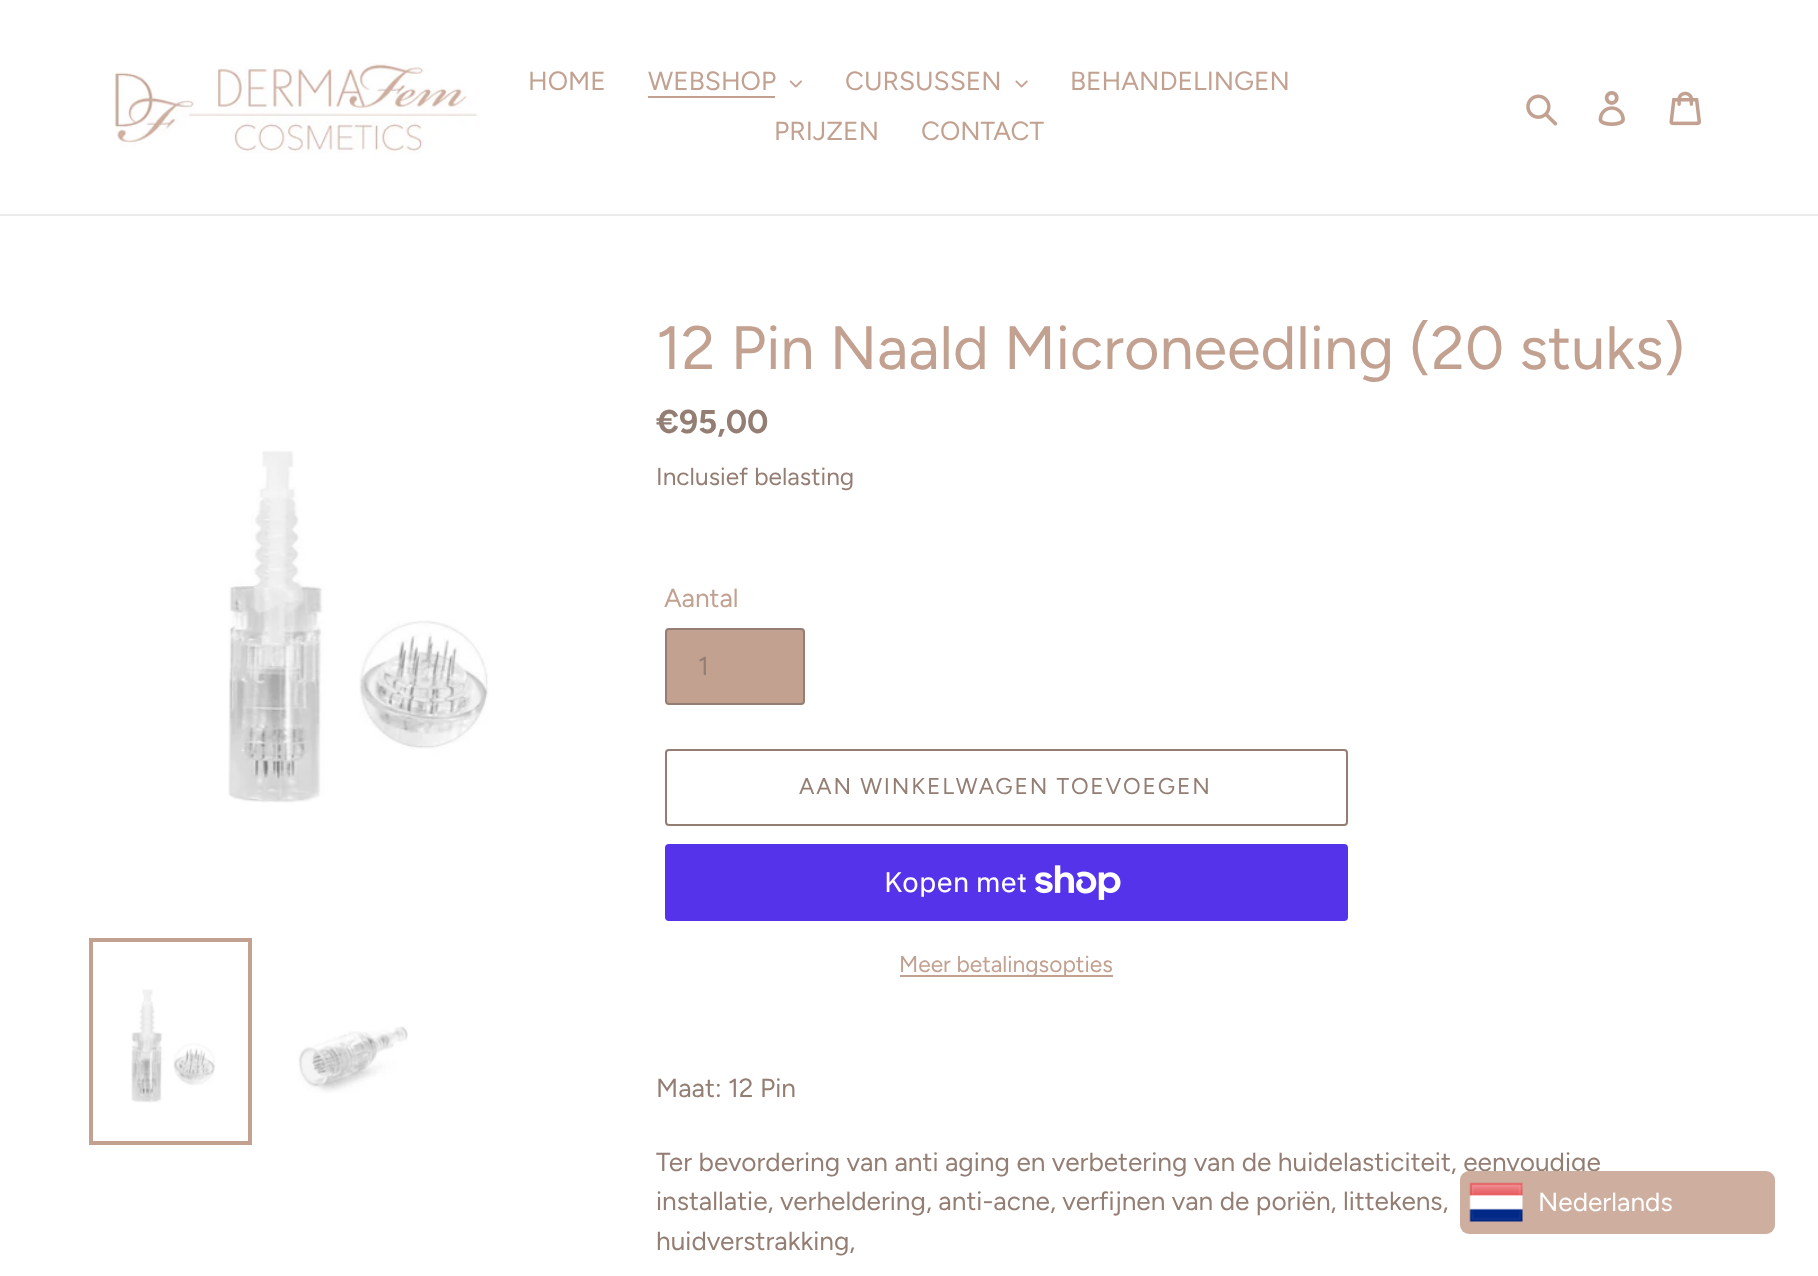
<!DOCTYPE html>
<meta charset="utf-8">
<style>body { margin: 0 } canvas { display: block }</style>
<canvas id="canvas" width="1818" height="1276"></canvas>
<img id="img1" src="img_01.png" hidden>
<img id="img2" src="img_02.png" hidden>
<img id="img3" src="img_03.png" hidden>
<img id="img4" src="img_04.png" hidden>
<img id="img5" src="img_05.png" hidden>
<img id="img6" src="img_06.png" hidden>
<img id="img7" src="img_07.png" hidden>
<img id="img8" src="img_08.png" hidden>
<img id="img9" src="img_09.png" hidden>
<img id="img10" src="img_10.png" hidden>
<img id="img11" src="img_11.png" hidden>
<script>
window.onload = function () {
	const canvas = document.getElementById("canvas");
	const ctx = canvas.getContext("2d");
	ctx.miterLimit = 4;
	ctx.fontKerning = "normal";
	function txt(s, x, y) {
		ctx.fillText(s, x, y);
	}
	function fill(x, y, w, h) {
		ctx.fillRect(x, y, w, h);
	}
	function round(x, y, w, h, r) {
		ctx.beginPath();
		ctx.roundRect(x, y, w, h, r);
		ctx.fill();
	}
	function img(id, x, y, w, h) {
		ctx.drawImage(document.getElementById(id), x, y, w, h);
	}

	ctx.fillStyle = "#FFFFFF";
	fill(0, 0, 1818, 1276);
	ctx.fillStyle = "#EBEBEB";
	fill(0, 214, 1818, 2);
	img("img1", 114, 63, 364, 91);
	ctx.fillStyle = "#C2A191";
	fill(648, 96, 127, 2);
	img("img2", 789, 80, 13, 8);
	img("img3", 1015, 80, 13, 8);
	img("img4", 1526, 94, 32, 32);
	img("img5", 1598, 91, 27, 35);
	img("img6", 1669, 91, 32, 35);
	img("img7", 228, 451, 261, 352);
	ctx.strokeStyle = "#C2A191";
	ctx.lineWidth = 4;
	ctx.strokeRect(91, 940, 159, 203);
	img("img8", 131, 989, 84, 114);
	img("img9", 298, 1026, 110, 67);
	ctx.beginPath();
	ctx.roundRect(666, 629, 138, 75, 3);
	ctx.fill();
	ctx.strokeStyle = "#947E73";
	ctx.lineWidth = 2;
	ctx.stroke();
	ctx.beginPath();
	ctx.roundRect(666, 750, 681, 75, 3);
	ctx.stroke();
	ctx.fillStyle = "#5433EB";
	round(665, 844, 683, 77, 4);
	img("img10", 1035, 865, 86, 35);
	ctx.fillStyle = "#C2A191";
	fill(900, 975, 213, 2);
	ctx.font = "26.25px Figtree";
	txt("HOME", 528, 90);
	txt("WEBSHOP", 648, 90);
	txt("CURSUSSEN", 845, 90);
	txt("BEHANDELINGEN", 1070, 90);
	txt("PRIJZEN", 774, 140);
	txt("CONTACT", 921, 140);
	ctx.font = "61.25px Figtree";
	txt("12 Pin Naald Microneedling (20 stuks)", 656, 369);
	ctx.font = "bold 33px Figtree";
	ctx.fillStyle = "#947E73";
	txt("€95,00", 656, 433);
	ctx.font = "24.5px Figtree";
	txt("Inclusief belasting", 656, 485);
	ctx.font = "26.25px Figtree";
	ctx.fillStyle = "#C2A191";
	txt("Aantal", 664, 607);
	ctx.fillStyle = "#947E73";
	txt("1", 698, 675);
	ctx.letterSpacing = "1.8px";
	ctx.font = "22.75px Figtree";
	txt("AAN WINKELWAGEN TOEVOEGEN", 799, 794);
	ctx.letterSpacing = "0px";
	ctx.font = "28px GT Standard";
	ctx.fillStyle = "#FFFFFF";
	txt("Kopen met", 884, 892);
	ctx.font = "22.75px Figtree";
	ctx.fillStyle = "#C2A191";
	txt("Meer betalingsopties", 899, 972);
	ctx.font = "26.25px Figtree";
	ctx.fillStyle = "#947E73";
	txt("Maat: 12 Pin", 656, 1097);
	txt("Ter bevordering van anti aging en verbetering van de huidelasticiteit, eenvoudige", 656, 1171);
	txt("installatie, verheldering, anti-acne, verfijnen van de poriën, littekens,", 656, 1210);
	txt("huidverstrakking,", 656, 1250);
	ctx.fillStyle = "#CEAE9F";
	round(1460, 1171, 315, 63, 9);
	img("img11", 1469, 1182, 54, 40);
	ctx.fillStyle = "#FFFFFF";
	txt("Nederlands", 1538, 1211);
};
</script>
